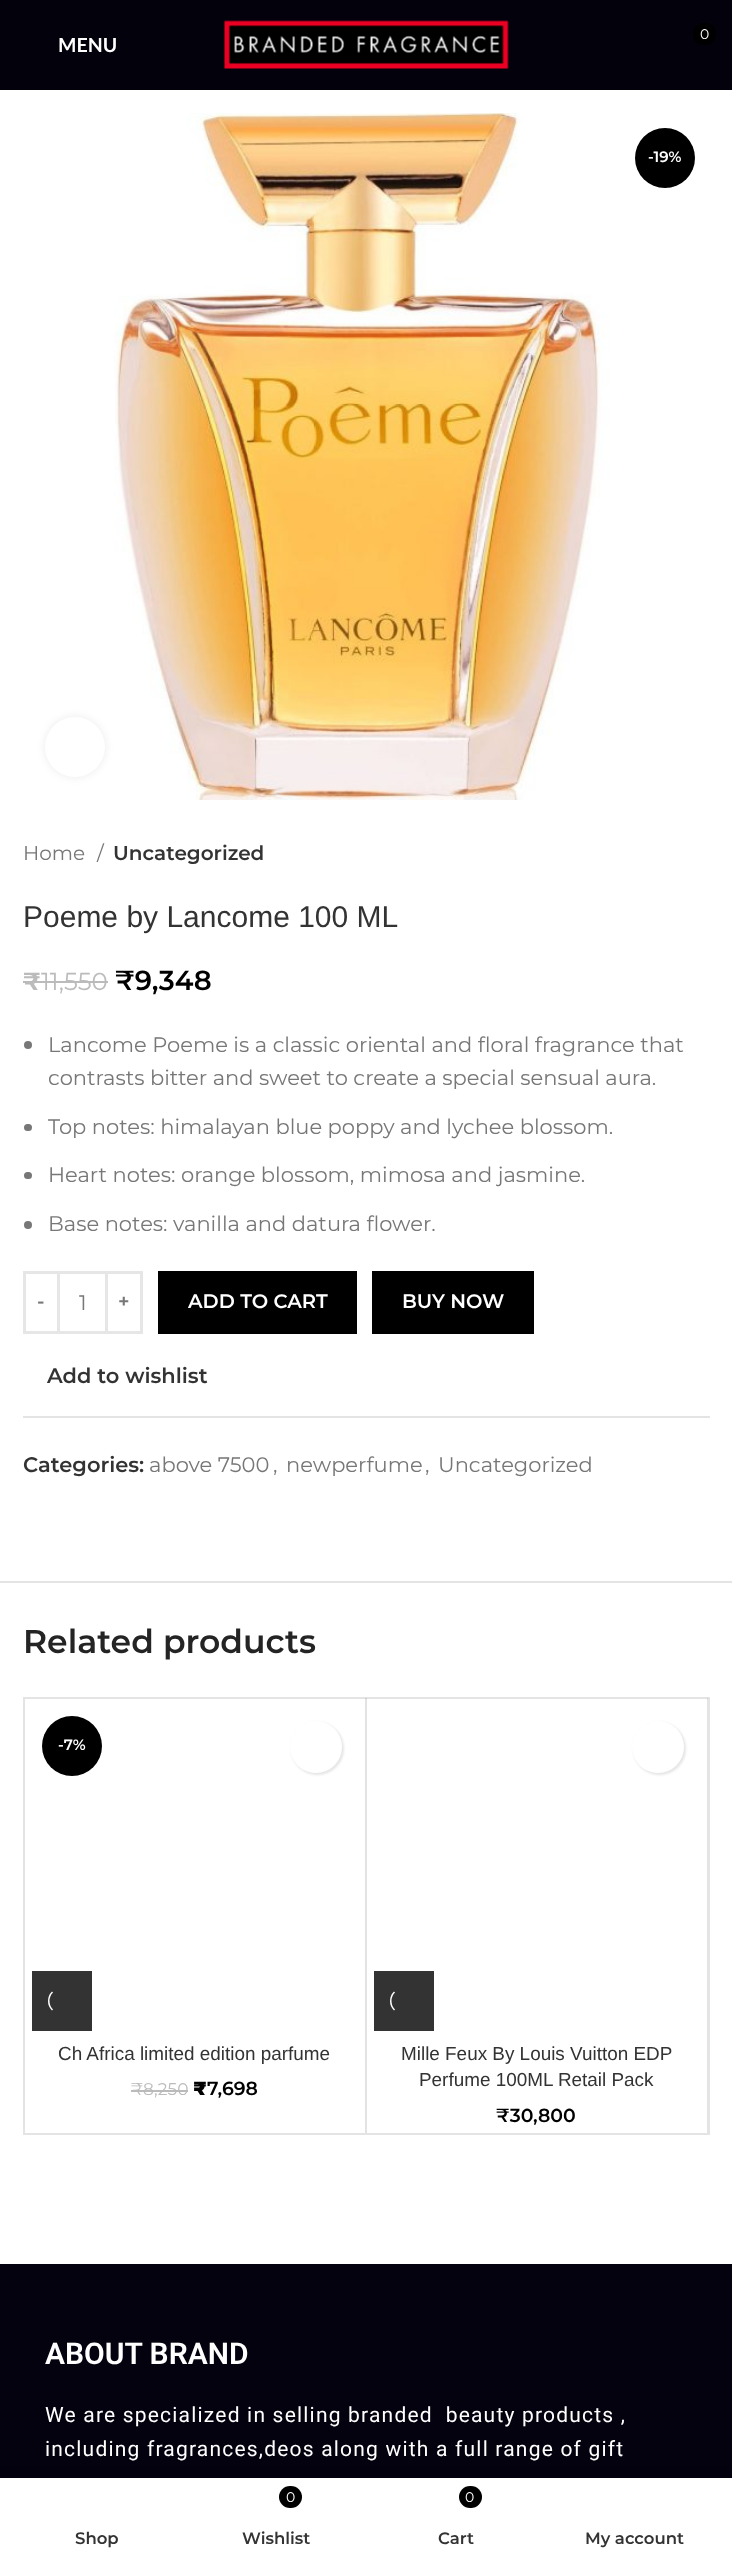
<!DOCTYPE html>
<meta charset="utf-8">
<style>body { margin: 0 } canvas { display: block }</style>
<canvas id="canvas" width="732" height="2560"></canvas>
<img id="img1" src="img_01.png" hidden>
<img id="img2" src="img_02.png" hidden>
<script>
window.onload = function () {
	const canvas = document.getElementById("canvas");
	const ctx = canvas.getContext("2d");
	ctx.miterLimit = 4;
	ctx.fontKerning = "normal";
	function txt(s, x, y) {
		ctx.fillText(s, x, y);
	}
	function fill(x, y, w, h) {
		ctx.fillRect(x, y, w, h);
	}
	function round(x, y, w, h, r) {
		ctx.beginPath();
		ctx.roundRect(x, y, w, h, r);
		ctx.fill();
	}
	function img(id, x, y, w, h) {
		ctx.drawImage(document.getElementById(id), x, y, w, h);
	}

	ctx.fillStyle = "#FFFFFF";
	fill(0, 0, 732, 2560);
	ctx.fillStyle = "#02010C";
	fill(0, 0, 732, 90);
	img("img1", 224, 20, 285, 49);
	ctx.fillStyle = "#000000";
	round(693, 23, 23, 22, 11);
	img("img2", 114, 113, 495, 687);
	ctx.beginPath();
	ctx.arc(665, 158, 30, 0, Math.PI * 2);
	ctx.fill();
	ctx.fillStyle = "rgba(0, 0, 0, 0.08)";
	ctx.filter = "blur(4px)";
	ctx.beginPath();
	ctx.roundRect(45, 717, 60, 60, 30);
	ctx.fill();
	ctx.filter = "none";
	ctx.fillStyle = "#FFFFFF";
	ctx.beginPath();
	ctx.arc(75, 747, 30, 0, Math.PI * 2);
	ctx.fill();
	ctx.fillStyle = "#BBBBBB";
	fill(23, 981, 18, 2);
	fill(41, 981, 67, 2);
	ctx.fillStyle = "#777777";
	ctx.beginPath();
	ctx.arc(28, 1045, 4, 0, Math.PI * 2);
	ctx.fill();
	round(24, 1124, 8, 7, 3.5);
	round(24, 1172, 8, 7, 3.5);
	ctx.beginPath();
	ctx.arc(28, 1225, 4, 0, Math.PI * 2);
	ctx.fill();
	ctx.strokeStyle = "#E6E6E6";
	ctx.lineWidth = 3;
	ctx.strokeRect(24.5, 1272.5, 34, 60);
	ctx.fillStyle = "#E6E6E6";
	fill(60, 1271, 45, 3);
	fill(60, 1331, 45, 3);
	ctx.strokeRect(106.5, 1272.5, 35, 60);
	ctx.fillStyle = "#000000";
	fill(158, 1271, 199, 63);
	fill(372, 1271, 162, 63);
	ctx.fillStyle = "#E4E4E4";
	fill(23, 1416, 687, 2);
	fill(0, 1581, 732, 2);
	ctx.strokeStyle = "#E4E4E4";
	ctx.lineWidth = 2;
	ctx.strokeRect(24, 1698, 685, 436);
	ctx.fillStyle = "rgba(0, 0, 0, 0.11)";
	fill(365, 1698, 2, 435);
	ctx.fillStyle = "#000000";
	ctx.beginPath();
	ctx.arc(72, 1746, 30, 0, Math.PI * 2);
	ctx.fill();
	ctx.fillStyle = "rgba(0, 0, 0, 0.1)";
	ctx.filter = "blur(1px)";
	ctx.beginPath();
	ctx.roundRect(291, 1722, 53, 53, 26.5);
	ctx.fill();
	ctx.filter = "none";
	ctx.fillStyle = "#FFFFFF";
	ctx.beginPath();
	ctx.arc(316, 1747, 26, 0, Math.PI * 2);
	ctx.fill();
	ctx.fillStyle = "#333333";
	fill(32, 1971, 60, 60);
	ctx.beginPath();
	ctx.moveTo(52.5, 2010);
	ctx.bezierCurveTo(47.5, 2005, 47.5, 1997, 52.5, 1992);
	ctx.strokeStyle = "#FFFFFF";
	ctx.lineWidth = 1.5;
	ctx.stroke();
	ctx.fillStyle = "#BBBBBB";
	fill(131, 2090, 57, 2);
	ctx.fillStyle = "rgba(0, 0, 0, 0.11)";
	fill(707, 1698, 1, 435);
	ctx.fillStyle = "rgba(0, 0, 0, 0.1)";
	ctx.filter = "blur(1px)";
	ctx.beginPath();
	ctx.roundRect(633, 1722, 53, 53, 26.5);
	ctx.fill();
	ctx.filter = "none";
	ctx.fillStyle = "#FFFFFF";
	ctx.beginPath();
	ctx.arc(658, 1747, 26, 0, Math.PI * 2);
	ctx.fill();
	ctx.fillStyle = "#333333";
	fill(374, 1971, 60, 60);
	ctx.beginPath();
	ctx.moveTo(394.5, 2010);
	ctx.bezierCurveTo(389.5, 2005, 389.5, 1997, 394.5, 1992);
	ctx.stroke();
	ctx.fillStyle = "#04020E";
	fill(0, 2264, 732, 214);
	ctx.fillStyle = "rgba(0, 0, 0, 0.12)";
	ctx.filter = "blur(7px)";
	ctx.beginPath();
	ctx.rect(0, 2478, 732, 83);
	ctx.fill();
	ctx.filter = "none";
	ctx.fillStyle = "#FFFFFF";
	fill(0, 2478, 732, 82);
	ctx.fillStyle = "#000000";
	round(279, 2486, 23, 22, 11);
	round(459, 2486, 23, 22, 11);
	ctx.font = "14px Montserrat";
	ctx.fillStyle = "#FFFFFF";
	txt("0", 700, 39);
	ctx.font = "bold 19.5px Lato";
	txt("MENU", 58, 52);
	ctx.font = "600 15px Montserrat";
	txt("-19%", 648, 162);
	ctx.font = "20px Montserrat";
	ctx.fillStyle = "#777777";
	txt("Home", 23, 860);
	txt("/", 97, 860);
	ctx.font = "600 20px Montserrat";
	ctx.fillStyle = "#333333";
	txt("Uncategorized", 113, 860);
	ctx.font = "30px Liberation Sans";
	txt("Poeme by Lancome 100 ML", 23, 927);
	ctx.font = "bold 24.5px Montserrat";
	ctx.fillStyle = "#BBBBBB";
	txt("₹", 23, 990);
	ctx.font = "24.5px Montserrat";
	txt("11,550", 41, 990);
	ctx.font = "600 27.5px Montserrat";
	ctx.fillStyle = "#000000";
	txt("₹9,348", 115, 990);
	ctx.font = "21px Montserrat";
	ctx.fillStyle = "#777777";
	txt("Lancome Poeme is a classic oriental and floral fragrance that", 48, 1052);
	txt("contrasts bitter and sweet to create a special sensual aura.", 48, 1085);
	txt("Top notes: himalayan blue poppy and lychee blossom.", 48, 1134);
	txt("Heart notes: orange blossom, mimosa and jasmine.", 48, 1182);
	txt("Base notes: vanilla and datura flower.", 48, 1231);
	ctx.font = "600 19.5px Montserrat";
	txt("-", 37, 1308);
	ctx.font = "21px Montserrat";
	txt("1", 79, 1310);
	ctx.font = "600 19.5px Montserrat";
	txt("+", 118, 1308);
	ctx.fillStyle = "#FFFFFF";
	txt("ADD TO CART", 188, 1308);
	txt("BUY NOW", 402, 1308);
	ctx.font = "600 21px Montserrat";
	ctx.fillStyle = "#333333";
	txt("Add to wishlist", 47, 1383);
	txt("Categories:", 23, 1472);
	ctx.font = "21px Montserrat";
	ctx.fillStyle = "#777777";
	txt("above 7500", 149, 1472);
	txt(",", 273, 1472);
	txt("newperfume", 286, 1472);
	txt(",", 425, 1472);
	txt("Uncategorized", 438, 1472);
	ctx.font = "600 33px Montserrat";
	ctx.fillStyle = "#242424";
	txt("Related products", 23, 1653);
	ctx.font = "600 15px Montserrat";
	ctx.fillStyle = "#FFFFFF";
	txt("-7%", 58, 1750);
	ctx.font = "18.9px Liberation Sans";
	ctx.fillStyle = "#333333";
	txt("Ch Africa limited edition parfume", 58, 2060);
	ctx.font = "17px Montserrat";
	ctx.fillStyle = "#BBBBBB";
	txt("₹8,250", 131, 2095);
	ctx.font = "900 18.9px Montserrat";
	ctx.fillStyle = "#000000";
	txt("₹", 193, 2095);
	ctx.font = "600 18.9px Montserrat";
	txt("7,698", 207, 2095);
	ctx.font = "18.9px Liberation Sans";
	ctx.fillStyle = "#333333";
	txt("Mille Feux By Louis Vuitton EDP", 401, 2060);
	txt("Perfume 100ML Retail Pack", 419, 2086);
	ctx.font = "600 18.9px Montserrat";
	ctx.fillStyle = "#000000";
	txt("₹30,800", 496, 2122);
	ctx.font = "600 30px Roboto";
	ctx.fillStyle = "#FFFFFF";
	txt("ABOUT BRAND", 45, 2364);
	ctx.letterSpacing = "1.2px";
	ctx.font = "21px Roboto";
	txt("We are specialized in selling branded  beauty products ,", 45, 2422);
	txt("including fragrances,deos along with a full range of gift", 45, 2456);
	ctx.letterSpacing = "0px";
	ctx.font = "600 16.5px Montserrat";
	ctx.fillStyle = "#333333";
	txt("Shop", 75, 2544);
	ctx.font = "14px Montserrat";
	ctx.fillStyle = "#FFFFFF";
	txt("0", 286, 2502);
	ctx.font = "600 16.5px Montserrat";
	ctx.fillStyle = "#333333";
	txt("Wishlist", 242, 2544);
	ctx.font = "14px Montserrat";
	ctx.fillStyle = "#FFFFFF";
	txt("0", 465, 2502);
	ctx.font = "600 16.5px Montserrat";
	ctx.fillStyle = "#333333";
	txt("Cart", 438, 2544);
	txt("My account", 585, 2544);
};
</script>
